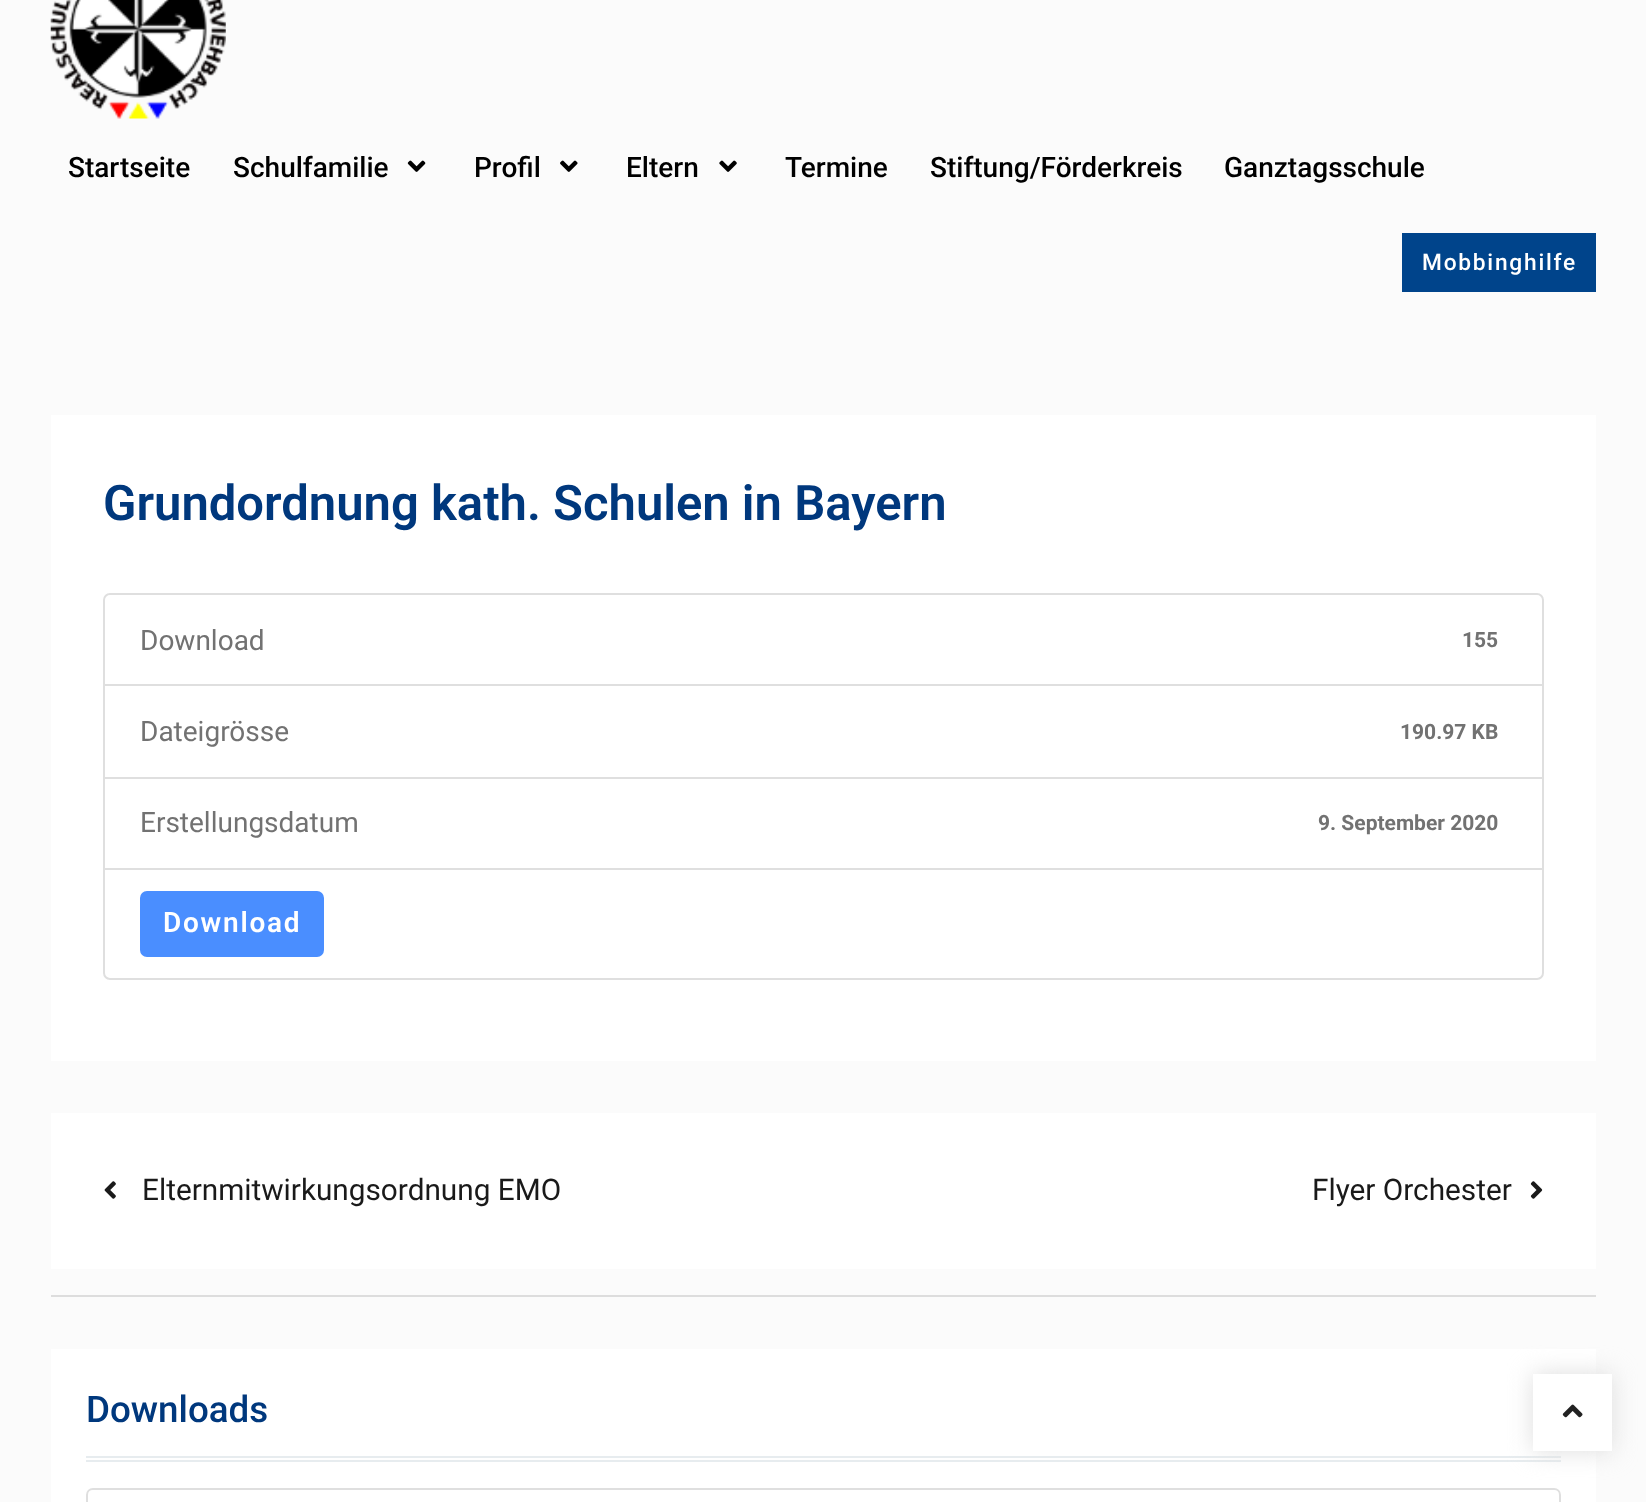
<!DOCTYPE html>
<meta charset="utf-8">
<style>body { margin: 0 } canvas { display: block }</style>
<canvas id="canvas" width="1646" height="1502"></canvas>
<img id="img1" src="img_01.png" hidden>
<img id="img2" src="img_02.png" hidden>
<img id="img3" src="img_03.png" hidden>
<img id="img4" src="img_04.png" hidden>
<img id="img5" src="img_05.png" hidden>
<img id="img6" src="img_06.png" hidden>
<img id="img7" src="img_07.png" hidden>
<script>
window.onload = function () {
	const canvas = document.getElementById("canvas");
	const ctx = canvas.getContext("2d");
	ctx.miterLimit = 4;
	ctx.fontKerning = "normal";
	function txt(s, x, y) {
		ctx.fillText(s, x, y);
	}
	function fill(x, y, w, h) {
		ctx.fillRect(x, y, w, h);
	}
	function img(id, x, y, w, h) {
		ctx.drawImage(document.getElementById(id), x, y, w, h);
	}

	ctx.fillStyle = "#FBFBFB";
	fill(0, 0, 1646, 1502);
	img("img1", 50, 0, 176, 119);
	img("img2", 407, 160, 19, 12);
	img("img3", 560, 160, 18, 12);
	img("img4", 719, 160, 18, 12);
	ctx.fillStyle = "#00448B";
	fill(1402, 233, 194, 59);
	ctx.fillStyle = "#DDDDDD";
	fill(51, 1295, 1545, 2);
	ctx.fillStyle = "#FFFFFF";
	fill(51, 415, 1545, 646);
	ctx.beginPath();
	ctx.roundRect(104, 594, 1439, 91, [6, 6, 0, 0]);
	ctx.strokeStyle = "#DFDFDF";
	ctx.lineWidth = 2;
	ctx.stroke();
	ctx.strokeRect(104, 685, 1439, 93);
	ctx.strokeRect(104, 778, 1439, 91);
	ctx.beginPath();
	ctx.roundRect(104, 869, 1439, 110, [0, 0, 6, 6]);
	ctx.fill();
	ctx.stroke();
	ctx.fillStyle = "#4A8EFF";
	ctx.beginPath();
	ctx.roundRect(141, 892, 182, 64, 6);
	ctx.fill();
	ctx.strokeStyle = "#4A8EFF";
	ctx.stroke();
	ctx.fillStyle = "#FFFFFF";
	fill(51, 1113, 1545, 156);
	img("img5", 104, 1181, 12, 18);
	img("img6", 1530, 1181, 13, 18);
	fill(51, 1349, 1545, 153);
	ctx.fillStyle = "#E7ECEF";
	fill(86, 1456, 1475, 2);
	fill(86, 1460, 1475, 2);
	ctx.beginPath();
	ctx.moveTo(93, 1489);
	ctx.lineTo(1554, 1489);
	ctx.bezierCurveTo(1557.5, 1489, 1560, 1491.5, 1560, 1495);
	ctx.lineTo(1560, 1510);
	ctx.lineTo(87, 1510);
	ctx.lineTo(87, 1495);
	ctx.bezierCurveTo(87, 1491.5, 89.5, 1489, 93, 1489);
	ctx.closePath();
	ctx.strokeStyle = "#DFDFDF";
	ctx.stroke();
	ctx.fillStyle = "#DDDDDD";
	ctx.filter = "blur(12px)";
	ctx.beginPath();
	ctx.rect(1533, 1374, 79, 77);
	ctx.fill();
	ctx.filter = "none";
	ctx.fillStyle = "#FFFFFF";
	fill(1533, 1374, 79, 77);
	img("img7", 1562, 1404, 21, 14);
	ctx.font = "500 28px Roboto";
	ctx.fillStyle = "#000000";
	txt("Startseite", 68, 177);
	txt("Schulfamilie", 233, 177);
	txt("Profil", 474, 177);
	txt("Eltern", 626, 177);
	txt("Termine", 785, 177);
	txt("Stiftung/Förderkreis", 930, 177);
	txt("Ganztagsschule", 1224, 177);
	ctx.letterSpacing = "1.75px";
	ctx.font = "500 22.75px Roboto";
	ctx.fillStyle = "#FFFFFF";
	txt("Mobbinghilfe", 1422, 270);
	ctx.letterSpacing = "0px";
	ctx.font = "600 49px Roboto";
	ctx.fillStyle = "#00387D";
	txt("Grundordnung kath. Schulen in Bayern", 103, 520);
	ctx.font = "28px Roboto";
	ctx.fillStyle = "#727272";
	txt("Download", 140, 650);
	ctx.font = "bold 21px Roboto";
	txt("155", 1462, 647);
	ctx.font = "28px Roboto";
	txt("Dateigrösse", 140, 741);
	ctx.font = "bold 21px Roboto";
	txt("190.97 KB", 1400, 739);
	ctx.font = "28px Roboto";
	txt("Erstellungsdatum", 140, 832);
	ctx.font = "bold 21px Roboto";
	txt("9. September 2020", 1318, 830);
	ctx.letterSpacing = "1.75px";
	ctx.font = "600 28px Roboto";
	ctx.fillStyle = "#FFFFFF";
	txt("Download", 163, 932);
	ctx.letterSpacing = "0px";
	ctx.font = "29.75px Roboto";
	ctx.fillStyle = "#1A1A1A";
	txt("Elternmitwirkungsordnung EMO", 142, 1200);
	txt("Flyer Orchester", 1312, 1200);
	ctx.font = "500 36.75px Roboto";
	ctx.fillStyle = "#00387D";
	txt("Downloads", 86, 1422);
};
</script>
